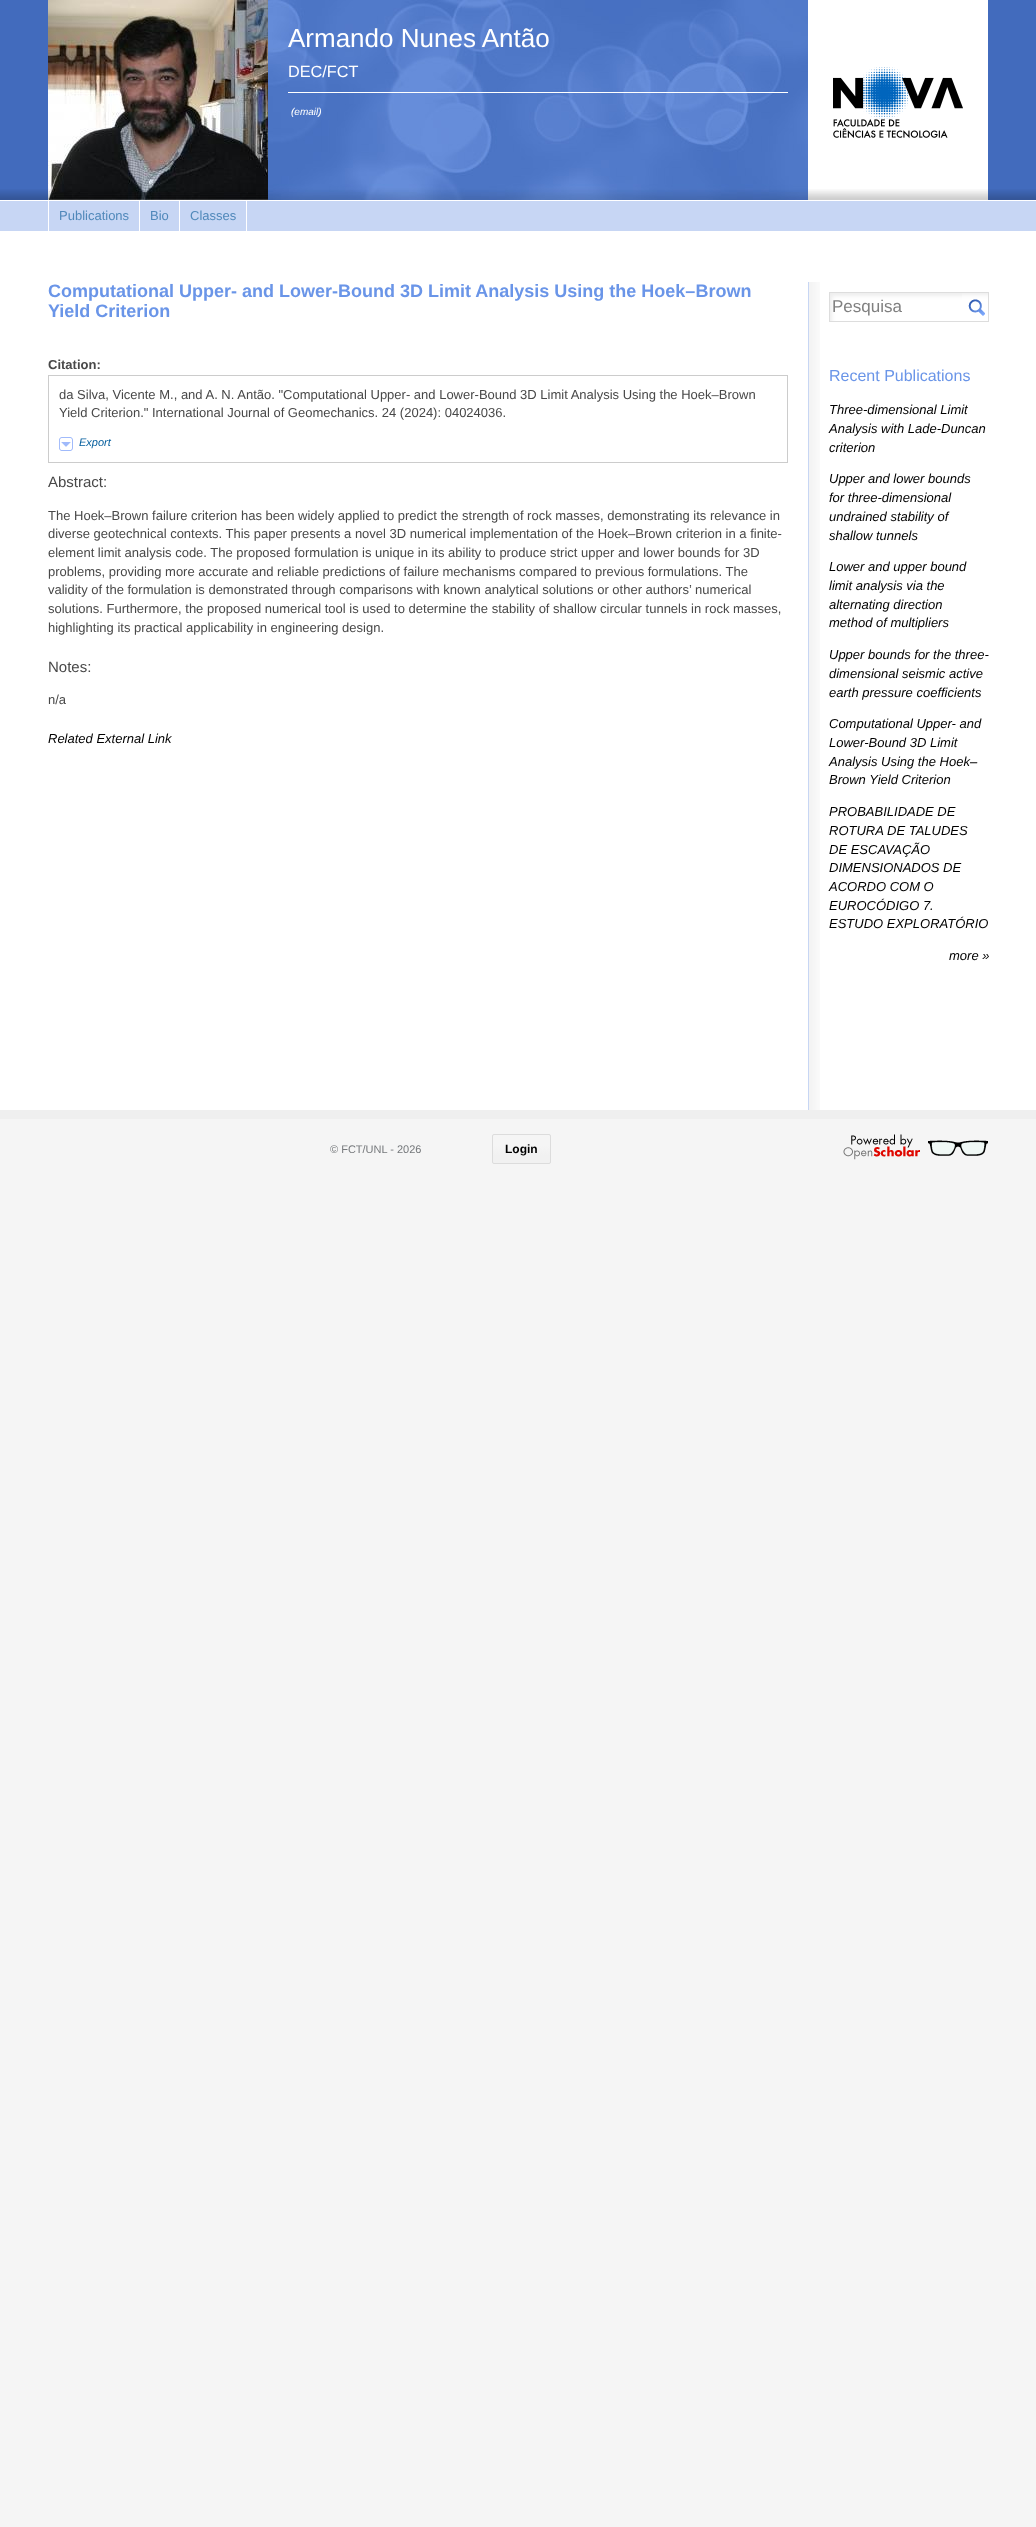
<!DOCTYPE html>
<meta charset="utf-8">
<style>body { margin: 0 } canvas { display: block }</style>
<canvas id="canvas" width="1036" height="2527"></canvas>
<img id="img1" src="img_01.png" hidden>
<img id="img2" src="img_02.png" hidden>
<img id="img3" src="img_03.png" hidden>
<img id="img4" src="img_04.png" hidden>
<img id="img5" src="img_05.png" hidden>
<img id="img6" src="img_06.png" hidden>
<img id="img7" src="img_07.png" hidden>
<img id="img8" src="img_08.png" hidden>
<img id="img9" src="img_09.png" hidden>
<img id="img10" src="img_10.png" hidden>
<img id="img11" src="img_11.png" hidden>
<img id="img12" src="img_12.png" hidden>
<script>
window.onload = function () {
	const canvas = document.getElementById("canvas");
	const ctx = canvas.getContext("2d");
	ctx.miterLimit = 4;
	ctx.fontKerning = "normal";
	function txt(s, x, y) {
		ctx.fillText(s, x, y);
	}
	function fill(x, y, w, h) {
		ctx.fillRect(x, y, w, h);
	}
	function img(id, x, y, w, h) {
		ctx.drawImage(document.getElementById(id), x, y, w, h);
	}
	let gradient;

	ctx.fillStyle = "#F5F5F5";
	fill(0, 0, 1036, 2527);
	ctx.fillStyle = "#FFFFFF";
	fill(0, 231, 1036, 879);
	ctx.fillStyle = "#426BBD";
	fill(0, 0, 1036, 200);
	img("img1", 0, 189, 1036, 11);
	img("img2", 268, 0, 540, 200);
	img("img3", 48, 0, 220, 200);
	img("img4", 48, 189, 220, 11);
	ctx.fillStyle = "#FFFFFF";
	fill(288, 92, 500, 1);
	fill(808, 0, 180, 200);
	img("img5", 808, 189, 180, 11);
	img("img6", 833, 67, 130, 71);
	ctx.fillStyle = "#C7D6F4";
	fill(0, 201, 1036, 30);
	ctx.fillStyle = "#FFFFFF";
	fill(0, 200, 1036, 1);
	fill(139, 201, 1, 30);
	fill(48, 201, 1, 30);
	fill(179, 201, 1, 30);
	fill(246, 201, 1, 30);
	ctx.fillStyle = "#CCCCCC";
	fill(48, 375, 740, 1);
	fill(787, 375, 1, 88);
	fill(48, 375, 1, 58);
	fill(48, 462, 740, 1);
	fill(48, 433, 1, 30);
	img("img7", 59, 437, 14, 14);
	img("img8", 809, 282, 11, 828);
	ctx.fillStyle = "#C7D6F4";
	fill(808, 282, 1, 828);
	img("img9", 962, 293, 26, 28);
	ctx.strokeStyle = "#DDDDDD";
	ctx.strokeRect(829.5, 292.5, 159, 29);
	img("img10", 830, 293, 132, 28);
	img("img11", 968, 299, 17, 17);
	ctx.fillStyle = "#EFEFEF";
	fill(0, 1110, 1036, 9);
	ctx.save();
	ctx.beginPath();
	ctx.roundRect(492, 1134, 59, 30, 2);
	ctx.clip();
	gradient = ctx.createLinearGradient(493, 1146, 493, 1155);
	gradient.addColorStop(0, "#F5F5F5");
	gradient.addColorStop(1, "#F1F1F1");
	ctx.fillStyle = gradient;
	fill(492, 1135, 59, 28);
	ctx.restore();
	ctx.beginPath();
	ctx.roundRect(492.5, 1134.5, 58, 29, 1.5);
	ctx.strokeStyle = "#DCDCDC";
	ctx.stroke();
	img("img12", 843, 1134, 145, 26);
	ctx.font = "26px Liberation Sans";
	ctx.fillStyle = "#FFFFFF";
	txt("Armando Nunes Antão", 288, 47);
	ctx.font = "16.25px Liberation Sans";
	txt("DEC/FCT", 288, 77);
	ctx.font = "italic 10px Liberation Sans";
	txt("(email)", 291, 115);
	ctx.font = "13px Liberation Sans";
	ctx.fillStyle = "#5088BA";
	txt("Publications", 59, 220);
	txt("Bio", 150, 220);
	txt("Classes", 190, 220);
	ctx.font = "bold 18px Liberation Sans";
	ctx.fillStyle = "#6A95E8";
	txt("Computational Upper- and Lower-Bound 3D Limit Analysis Using the Hoek–Brown", 48, 297);
	txt("Yield Criterion", 48, 317);
	ctx.font = "bold 13px Liberation Sans";
	ctx.fillStyle = "#484848";
	txt("Citation:", 48, 369);
	ctx.font = "13px Liberation Sans";
	txt("da Silva, Vicente M., and A. N. Antão. \"Computational Upper- and Lower-Bound 3D Limit Analysis Using the Hoek–Brown", 59, 399);
	txt("Yield Criterion.\" International Journal of Geomechanics. 24 (2024): 04024036.", 59, 417);
	ctx.font = "italic 11px Liberation Sans";
	ctx.fillStyle = "#005C9C";
	txt("Export", 79, 446);
	ctx.font = "15px Liberation Sans";
	ctx.fillStyle = "#484848";
	txt("Abstract:", 48, 487);
	ctx.font = "13px Liberation Sans";
	txt("The Hoek–Brown failure criterion has been widely applied to predict the strength of rock masses, demonstrating its relevance in", 48, 520);
	txt("diverse geotechnical contexts. This paper presents a novel 3D numerical implementation of the Hoek–Brown criterion in a finite-", 48, 538);
	txt("element limit analysis code. The proposed formulation is unique in its ability to produce strict upper and lower bounds for 3D", 48, 557);
	txt("problems, providing more accurate and reliable predictions of failure mechanisms compared to previous formulations. The", 48, 576);
	txt("validity of the formulation is demonstrated through comparisons with known analytical solutions or other authors’ numerical", 48, 594);
	txt("solutions. Furthermore, the proposed numerical tool is used to determine the stability of shallow circular tunnels in rock masses,", 48, 613);
	txt("highlighting its practical applicability in engineering design.", 48, 632);
	ctx.font = "15px Liberation Sans";
	txt("Notes:", 48, 672);
	ctx.font = "13px Liberation Sans";
	txt("n/a", 48, 704);
	ctx.font = "italic 13px Liberation Sans";
	ctx.fillStyle = "#000000";
	txt("Related External Link", 48, 743);
	ctx.font = "17px Liberation Sans";
	ctx.fillStyle = "#808080";
	txt("Pesquisa", 832, 312);
	ctx.font = "16px Liberation Sans";
	ctx.fillStyle = "#6A95E8";
	txt("Recent Publications", 829, 381);
	ctx.font = "italic 13px Liberation Sans";
	ctx.fillStyle = "#000000";
	txt("Three-dimensional Limit", 829, 414);
	txt("Analysis with Lade-Duncan", 829, 433);
	txt("criterion", 829, 452);
	txt("Upper and lower bounds", 829, 483);
	txt("for three-dimensional", 829, 502);
	txt("undrained stability of", 829, 521);
	txt("shallow tunnels", 829, 540);
	txt("Lower and upper bound", 829, 571);
	txt("limit analysis via the", 829, 590);
	txt("alternating direction", 829, 609);
	txt("method of multipliers", 829, 627);
	txt("Upper bounds for the three-", 829, 659);
	txt("dimensional seismic active", 829, 678);
	txt("earth pressure coefficients", 829, 697);
	txt("Computational Upper- and", 829, 728);
	txt("Lower-Bound 3D Limit", 829, 747);
	txt("Analysis Using the Hoek–", 829, 766);
	txt("Brown Yield Criterion", 829, 784);
	txt("PROBABILIDADE DE", 829, 816);
	txt("ROTURA DE TALUDES", 829, 835);
	txt("DE ESCAVAÇÃO", 829, 854);
	txt("DIMENSIONADOS DE", 829, 872);
	txt("ACORDO COM O", 829, 891);
	txt("EUROCÓDIGO 7.", 829, 910);
	txt("ESTUDO EXPLORATÓRIO", 829, 928);
	txt("more »", 949, 960);
	ctx.font = "11px Liberation Sans";
	ctx.fillStyle = "#76797C";
	txt("© FCT/UNL - 2026", 330, 1153);
	ctx.font = "bold 12px Liberation Sans";
	ctx.fillStyle = "#000000";
	txt("Login", 505, 1153);
};
</script>
